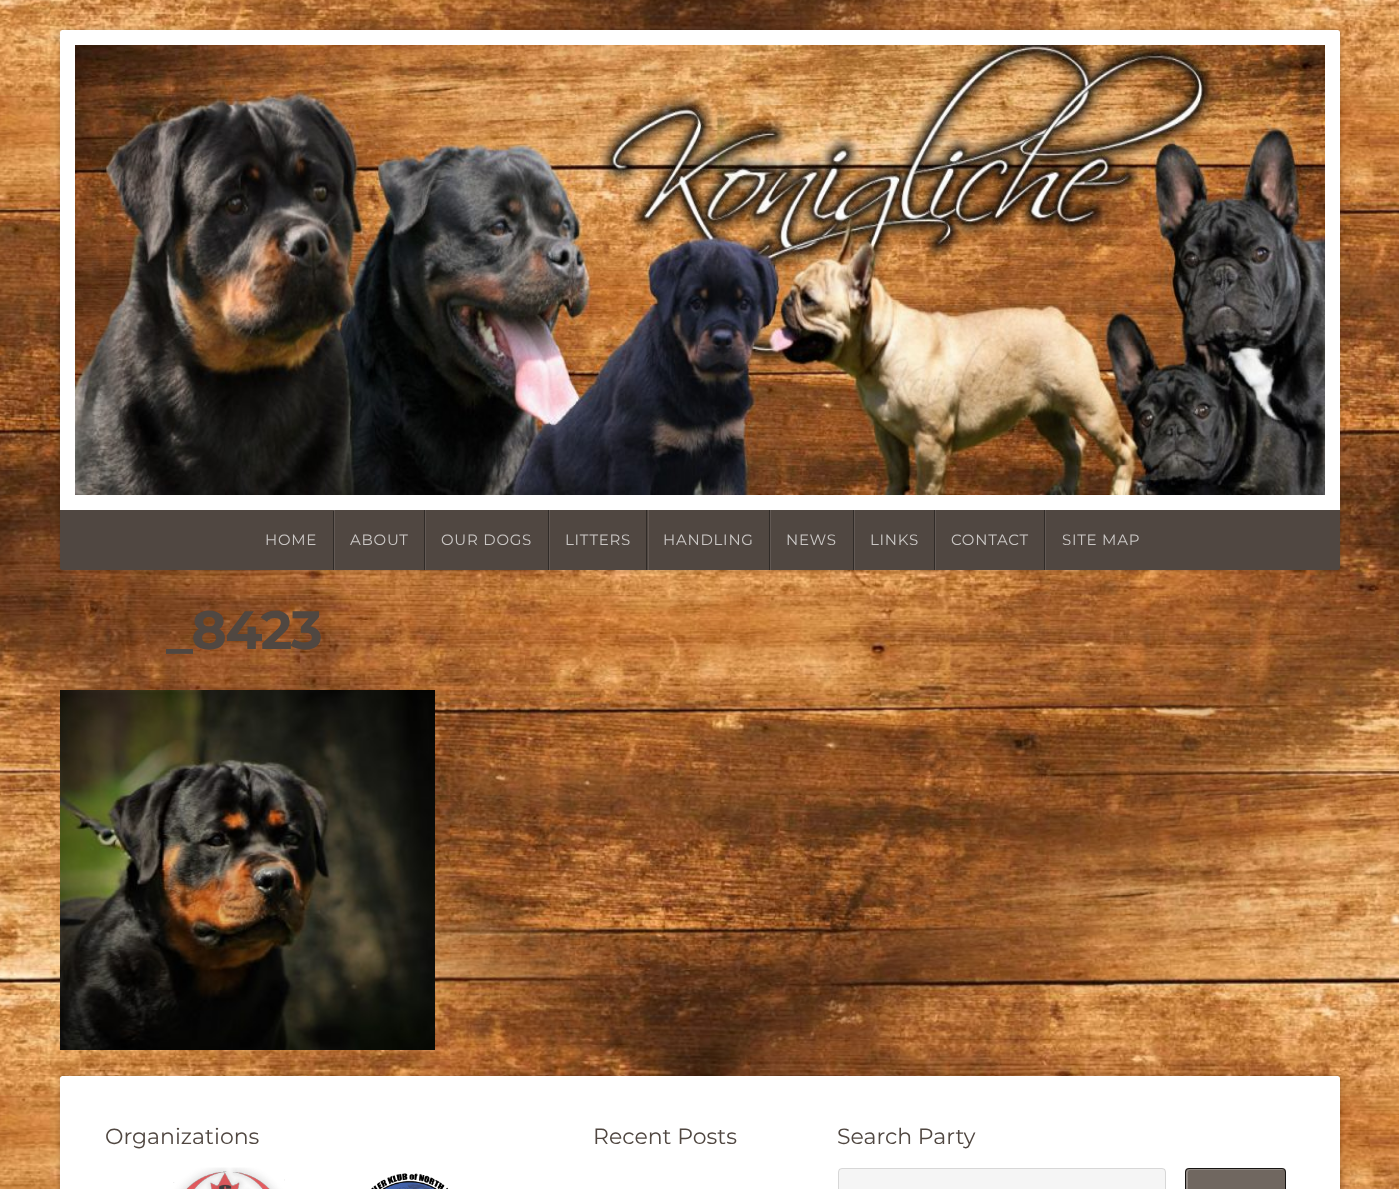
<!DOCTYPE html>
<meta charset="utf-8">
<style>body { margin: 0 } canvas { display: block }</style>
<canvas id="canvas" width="1399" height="1189"></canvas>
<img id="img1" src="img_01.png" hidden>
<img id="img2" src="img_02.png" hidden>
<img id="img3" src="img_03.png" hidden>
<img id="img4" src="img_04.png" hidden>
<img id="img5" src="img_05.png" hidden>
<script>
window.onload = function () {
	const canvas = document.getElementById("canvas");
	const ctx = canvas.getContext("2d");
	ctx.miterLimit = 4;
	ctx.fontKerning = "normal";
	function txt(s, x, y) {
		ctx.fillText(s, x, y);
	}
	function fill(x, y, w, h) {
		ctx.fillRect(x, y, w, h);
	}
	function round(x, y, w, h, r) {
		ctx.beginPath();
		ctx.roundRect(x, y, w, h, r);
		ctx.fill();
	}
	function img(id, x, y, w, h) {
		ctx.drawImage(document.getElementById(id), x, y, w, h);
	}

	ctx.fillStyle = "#FFFFFF";
	fill(0, 0, 1399, 1189);
	img("img1", 0, 0, 1399, 1189);
	ctx.fillStyle = "rgba(0, 0, 0, 0.24)";
	ctx.filter = "blur(2.5px)";
	ctx.beginPath();
	ctx.roundRect(60, 30, 1280, 540, 2.5);
	ctx.fill();
	ctx.filter = "none";
	ctx.fillStyle = "#FFFFFF";
	ctx.beginPath();
	ctx.roundRect(60, 30, 1280, 480, [2.5, 2.5, 0, 0]);
	ctx.fill();
	img("img2", 75, 45, 1250, 450);
	ctx.fillStyle = "#504741";
	ctx.beginPath();
	ctx.roundRect(60, 510, 1280, 60, [0, 0, 2.5, 2.5]);
	ctx.fill();
	ctx.fillStyle = "#302B27";
	fill(333, 511, 1, 59);
	fill(424, 510, 1, 60);
	ctx.fillStyle = "#625954";
	fill(334, 510, 1, 60);
	ctx.fillStyle = "#302B27";
	fill(548, 510, 1, 60);
	ctx.fillStyle = "#625954";
	fill(425, 510, 1, 60);
	ctx.fillStyle = "#302B27";
	fill(646, 510, 1, 60);
	ctx.fillStyle = "#625954";
	fill(549, 510, 1, 60);
	ctx.fillStyle = "#302B27";
	fill(769, 510, 1, 60);
	ctx.fillStyle = "#625954";
	fill(648, 510, 1, 60);
	ctx.fillStyle = "#302B27";
	fill(853, 510, 1, 60);
	ctx.fillStyle = "#625954";
	fill(770, 510, 1, 60);
	ctx.fillStyle = "#302B27";
	fill(934, 510, 1, 60);
	ctx.fillStyle = "#625954";
	fill(854, 510, 1, 60);
	ctx.fillStyle = "#302B27";
	fill(1044, 510, 1, 60);
	ctx.fillStyle = "#625954";
	fill(935, 510, 1, 60);
	fill(1045, 510, 1, 60);
	img("img3", 60, 690, 375, 360);
	ctx.fillStyle = "rgba(0, 0, 0, 0.24)";
	ctx.filter = "blur(2.5px)";
	ctx.beginPath();
	ctx.roundRect(60, 1076, 1280, 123, 2.5);
	ctx.fill();
	ctx.filter = "none";
	ctx.fillStyle = "#FFFFFF";
	ctx.beginPath();
	ctx.moveTo(62.5, 1076);
	ctx.lineTo(1337.5, 1076);
	ctx.bezierCurveTo(1339, 1076, 1340, 1077, 1340, 1078.5);
	ctx.lineTo(1340, 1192);
	ctx.lineTo(60, 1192);
	ctx.lineTo(60, 1078.5);
	ctx.bezierCurveTo(60, 1077, 61, 1076, 62.5, 1076);
	ctx.closePath();
	ctx.fill();
	img("img4", 173, 1167, 112, 22);
	ctx.fillStyle = "#F5F5F5";
	round(838, 1168, 328, 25, 4);
	ctx.beginPath();
	ctx.roundRect(838.5, 1168.5, 327, 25, 3.5);
	ctx.strokeStyle = "rgba(0, 0, 0, 0.12)";
	ctx.stroke();
	ctx.fillStyle = "#706760";
	round(1185, 1168, 101, 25, 4);
	ctx.fillStyle = "#928B86";
	ctx.beginPath();
	ctx.moveTo(1190, 1170);
	ctx.lineTo(1285, 1170);
	ctx.bezierCurveTo(1284, 1169, 1283, 1169, 1282, 1169);
	ctx.lineTo(1188, 1169);
	ctx.bezierCurveTo(1187, 1169, 1186, 1170, 1186, 1172);
	ctx.lineTo(1186, 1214);
	ctx.bezierCurveTo(1186, 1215, 1187, 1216, 1188, 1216);
	ctx.lineTo(1188, 1179);
	ctx.bezierCurveTo(1188, 1176, 1187, 1170, 1190, 1170);
	ctx.closePath();
	ctx.fill();
	ctx.beginPath();
	ctx.roundRect(1185.5, 1168.5, 100, 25, 3.5);
	ctx.strokeStyle = "rgba(0, 0, 0, 0.8)";
	ctx.stroke();
	img("img5", 371, 1173, 78, 16);
	ctx.letterSpacing = "0.75px";
	ctx.font = "15px Montserrat";
	ctx.fillStyle = "#CBC8C6";
	txt("HOME", 265, 545);
	txt("ABOUT", 350, 545);
	txt("OUR DOGS", 441, 545);
	txt("LITTERS", 565, 545);
	txt("HANDLING", 663, 545);
	txt("NEWS", 786, 545);
	txt("LINKS", 870, 545);
	txt("CONTACT", 951, 545);
	txt("SITE MAP", 1062, 545);
	ctx.letterSpacing = "-1.75px";
	ctx.font = "bold 54px Montserrat";
	ctx.fillStyle = "#504741";
	txt("_8423", 166, 649);
	ctx.letterSpacing = "0px";
	ctx.font = "22px Montserrat";
	txt("Organizations", 105, 1144);
	txt("Recent Posts", 593, 1144);
	txt("Search Party", 837, 1144);
};
</script>
